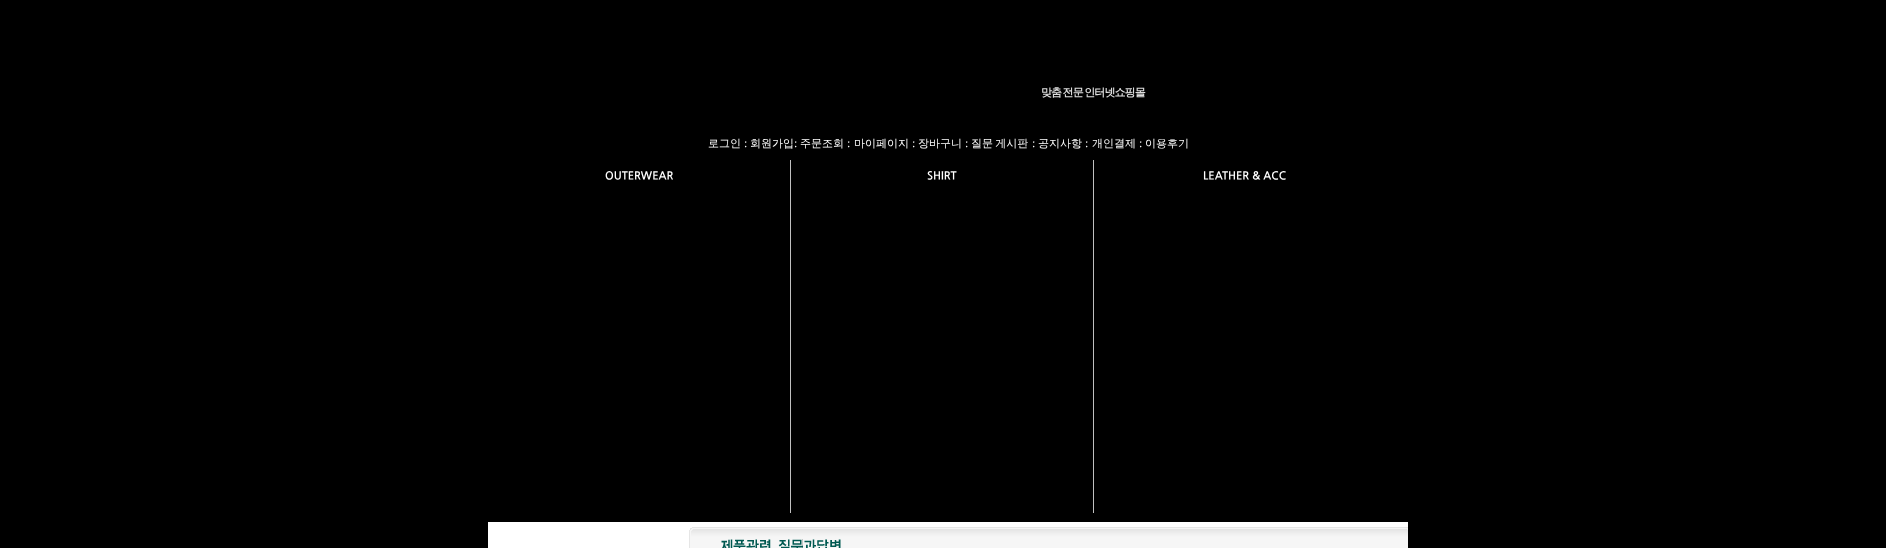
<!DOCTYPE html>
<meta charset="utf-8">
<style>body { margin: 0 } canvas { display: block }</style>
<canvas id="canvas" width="1886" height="548"></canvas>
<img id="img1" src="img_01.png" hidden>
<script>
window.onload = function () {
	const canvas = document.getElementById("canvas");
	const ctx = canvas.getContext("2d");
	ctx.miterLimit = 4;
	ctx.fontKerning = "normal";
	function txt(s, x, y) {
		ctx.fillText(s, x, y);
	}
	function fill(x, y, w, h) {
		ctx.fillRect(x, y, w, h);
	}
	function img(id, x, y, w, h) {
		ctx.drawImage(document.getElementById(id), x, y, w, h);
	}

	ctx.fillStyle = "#000000";
	fill(0, 0, 1886, 548);
	ctx.fillStyle = "#C0C0C0";
	fill(790, 160, 1, 353);
	fill(1093, 160, 1, 353);
	ctx.fillStyle = "#FFFFFF";
	fill(488, 522, 920, 26);
	img("img1", 689, 527, 719, 21);
	ctx.letterSpacing = "-0.9px";
	ctx.wordSpacing = "-1px";
	ctx.font = "bold 11px WenQuanYi Zen Hei";
	ctx.fillStyle = "#DDDDDD";
	txt("맞춤 전문 인터넷쇼핑몰", 1041, 96);
	ctx.letterSpacing = "0px";
	ctx.wordSpacing = "0px";
	ctx.font = "500 11px WenQuanYi Zen Hei";
	ctx.fillStyle = "#FFFFFF";
	txt("로그인", 708, 147);
	ctx.font = "12px Liberation Serif";
	txt(":", 744, 147);
	ctx.font = "500 11px WenQuanYi Zen Hei";
	txt("회원가입", 750, 147);
	ctx.font = "12px Liberation Serif";
	txt(":", 794, 147);
	ctx.font = "500 11px WenQuanYi Zen Hei";
	txt("주문조회", 800, 147);
	ctx.font = "12px Liberation Serif";
	txt(":", 847, 147);
	ctx.font = "500 11px WenQuanYi Zen Hei";
	txt("마이페이지", 854, 147);
	ctx.font = "12px Liberation Serif";
	txt(":", 912, 147);
	ctx.font = "500 11px WenQuanYi Zen Hei";
	txt("장바구니", 918, 147);
	ctx.font = "12px Liberation Serif";
	txt(":", 965, 147);
	ctx.wordSpacing = "-1px";
	ctx.font = "500 11px WenQuanYi Zen Hei";
	txt("질문 게시판", 971, 147);
	ctx.wordSpacing = "0px";
	ctx.font = "12px Liberation Serif";
	txt(":", 1032, 147);
	ctx.font = "500 11px WenQuanYi Zen Hei";
	txt("공지사항", 1038, 147);
	ctx.font = "12px Liberation Serif";
	txt(":", 1085, 147);
	ctx.font = "500 11px WenQuanYi Zen Hei";
	txt("개인결제", 1092, 147);
	ctx.font = "12px Liberation Serif";
	txt(":", 1139, 147);
	ctx.font = "500 11px WenQuanYi Zen Hei";
	txt("이용후기", 1145, 147);
	ctx.font = "bold 11px NanumGothic";
	txt("OUTERWEAR", 605, 179);
	txt("SHIRT", 927, 179);
	txt("LEATHER & ACC", 1203, 179);
};
</script>
